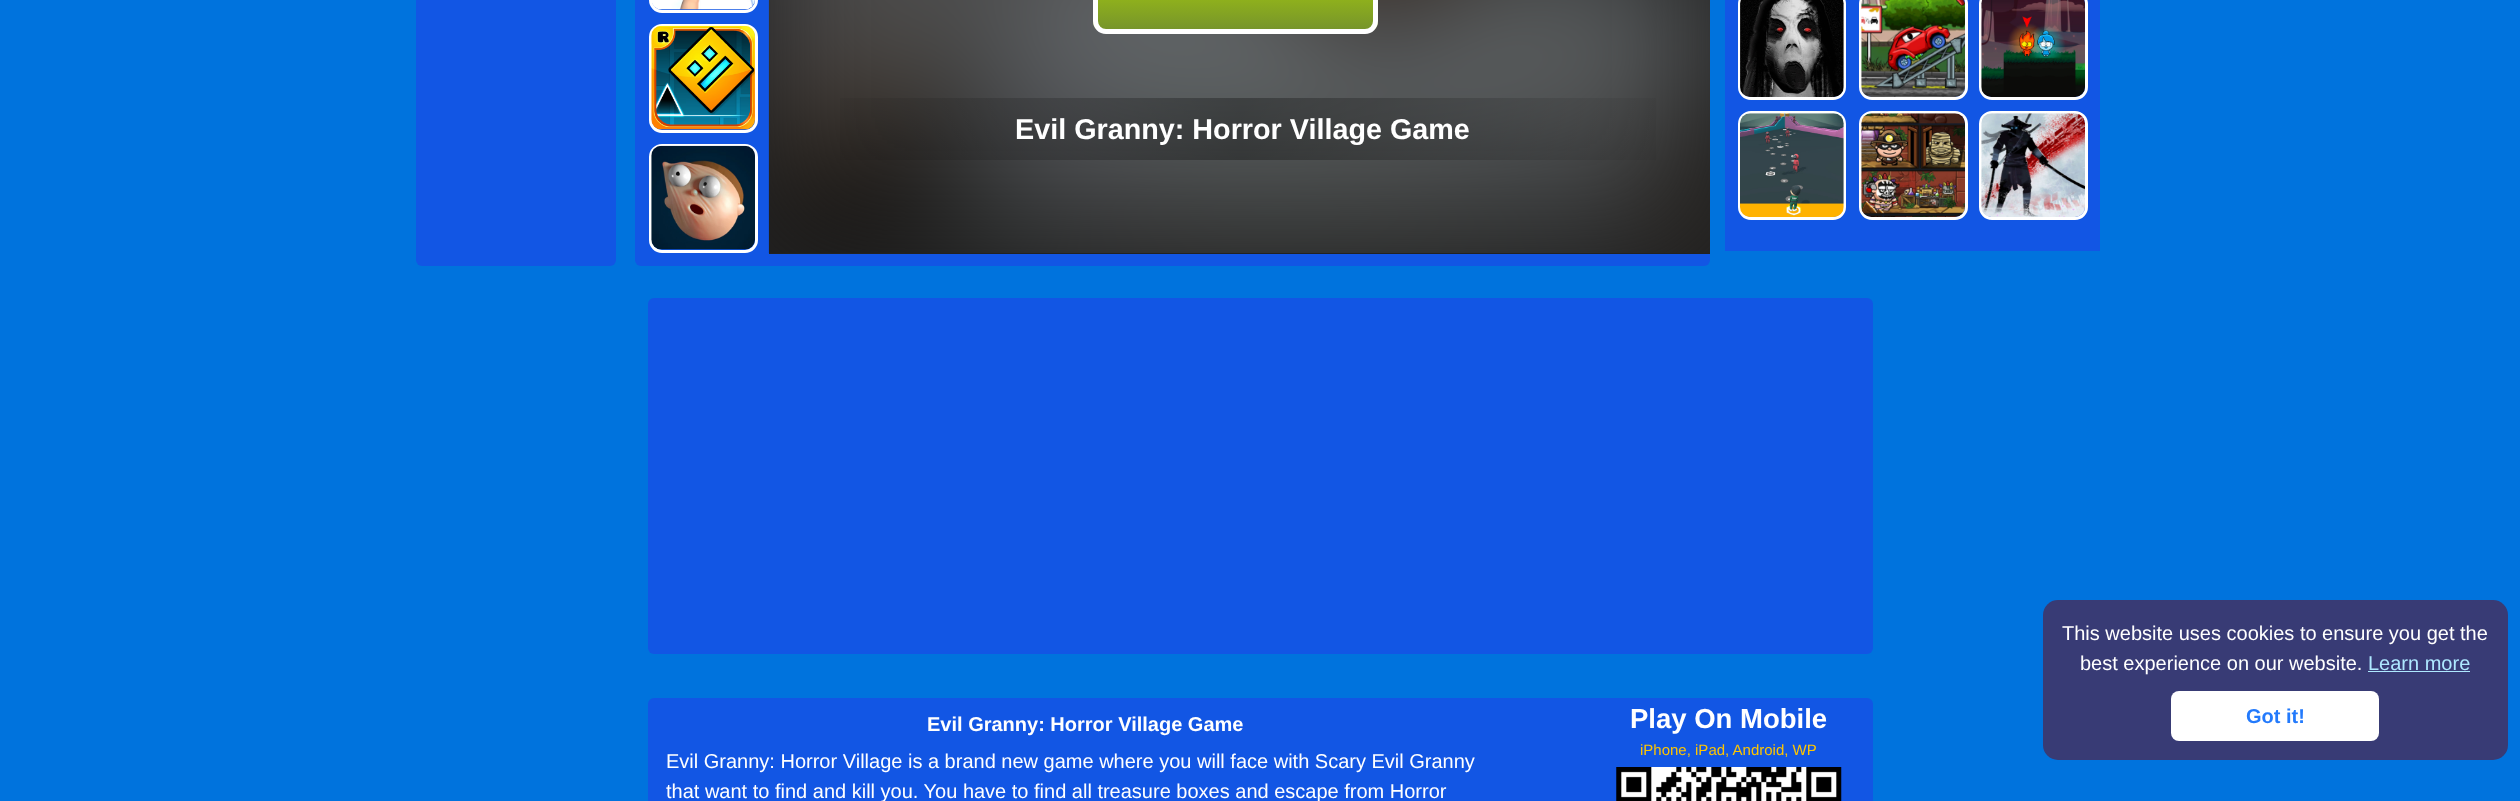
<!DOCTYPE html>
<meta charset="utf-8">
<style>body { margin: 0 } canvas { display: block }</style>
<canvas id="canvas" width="2520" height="801"></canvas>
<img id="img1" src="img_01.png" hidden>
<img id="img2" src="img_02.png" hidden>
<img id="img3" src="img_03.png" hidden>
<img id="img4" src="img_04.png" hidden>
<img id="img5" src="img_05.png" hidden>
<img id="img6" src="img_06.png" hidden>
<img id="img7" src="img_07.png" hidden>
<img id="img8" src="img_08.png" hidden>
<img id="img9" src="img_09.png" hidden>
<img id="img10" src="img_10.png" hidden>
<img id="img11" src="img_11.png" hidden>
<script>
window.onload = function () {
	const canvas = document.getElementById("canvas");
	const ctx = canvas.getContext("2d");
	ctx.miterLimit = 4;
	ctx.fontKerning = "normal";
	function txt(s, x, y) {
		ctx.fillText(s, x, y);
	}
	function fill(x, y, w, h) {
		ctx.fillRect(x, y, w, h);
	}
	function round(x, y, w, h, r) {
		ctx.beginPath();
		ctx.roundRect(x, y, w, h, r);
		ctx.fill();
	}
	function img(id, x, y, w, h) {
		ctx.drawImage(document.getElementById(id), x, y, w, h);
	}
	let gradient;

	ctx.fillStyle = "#0073DD";
	fill(0, 0, 2520, 801);
	ctx.fillStyle = "#1256E4";
	round(416, -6, 200, 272, 6);
	round(635, -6, 1075, 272, 6);
	ctx.beginPath();
	ctx.roundRect(650.5, -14.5, 106, 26, 11.5);
	ctx.strokeStyle = "#FFFFFF";
	ctx.lineWidth = 3;
	ctx.stroke();
	img("img1", 652, 0, 103, 10);
	ctx.beginPath();
	ctx.roundRect(650.5, 25.5, 106, 106, 11.5);
	ctx.stroke();
	img("img2", 651, 25, 104, 105);
	ctx.beginPath();
	ctx.roundRect(650.5, 145.5, 106, 106, 11.5);
	ctx.stroke();
	img("img3", 651, 145, 104, 105);
	ctx.fillStyle = "#222222";
	fill(769, 0, 941, 254);
	img("img4", 768, 0, 942, 253);
	ctx.save();
	ctx.beginPath();
	ctx.roundRect(1093, -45, 285, 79, 13);
	ctx.clip();
	gradient = ctx.createLinearGradient(1235, -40, 1235, 29);
	gradient.addColorStop(0, "#AED409");
	gradient.addColorStop(1, "#77952B");
	ctx.fillStyle = gradient;
	fill(1093, 0, 285, 29);
	ctx.restore();
	ctx.beginPath();
	ctx.roundRect(1095.5, -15.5, 280, 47, 10.5);
	ctx.lineWidth = 5;
	ctx.stroke();
	gradient = ctx.createLinearGradient(769, 129, 1715, 129);
	gradient.addColorStop(0, "rgba(0, 0, 0, 0)");
	gradient.addColorStop(0.5, "rgba(0, 0, 0, 0.3)");
	gradient.addColorStop(1, "rgba(0, 0, 0, 0)");
	ctx.fillStyle = gradient;
	fill(840, 98, 816, 62);
	ctx.fillStyle = "#1256E4";
	fill(1725, 0, 375, 251);
	ctx.beginPath();
	ctx.roundRect(1739.5, -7.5, 105, 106, 11.5);
	ctx.lineWidth = 3;
	ctx.stroke();
	img("img5", 1740, 0, 104, 97);
	ctx.beginPath();
	ctx.roundRect(1860.5, -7.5, 106, 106, 11.5);
	ctx.stroke();
	img("img6", 1861, 0, 104, 97);
	ctx.beginPath();
	ctx.roundRect(1980.5, -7.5, 106, 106, 11.5);
	ctx.stroke();
	img("img7", 1981, 0, 104, 97);
	ctx.beginPath();
	ctx.roundRect(1739.5, 112.5, 105, 106, 11.5);
	ctx.stroke();
	img("img8", 1740, 113, 104, 104);
	ctx.beginPath();
	ctx.roundRect(1860.5, 112.5, 106, 106, 11.5);
	ctx.stroke();
	img("img9", 1861, 113, 104, 104);
	ctx.beginPath();
	ctx.roundRect(1980.5, 112.5, 106, 106, 11.5);
	ctx.stroke();
	img("img10", 1981, 113, 104, 104);
	round(648, 298, 1225, 356, 6);
	round(648, 698, 1225, 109, 6);
	img("img11", 1616, 767, 226, 34);
	ctx.fillStyle = "#383B75";
	round(2043, 600, 465, 160, 15);
	ctx.fillStyle = "#AEE8FF";
	fill(2368, 671, 102, 1);
	ctx.fillStyle = "#FFFFFF";
	round(2171, 691, 208, 50, 8);
	ctx.font = "bold 28.75px Liberation Sans";
	txt("Evil Granny: Horror Village Game", 1015, 139);
	ctx.font = "bold 20px Liberation Sans";
	txt("Evil Granny: Horror Village Game", 927, 731);
	ctx.font = "20px Liberation Sans";
	txt("Evil Granny: Horror Village is a brand new game where you will face with Scary Evil Granny", 666, 768);
	txt("that want to find and kill you. You have to find all treasure boxes and escape from Horror", 666, 798);
	ctx.font = "bold 27.5px Liberation Sans";
	txt("Play On Mobile", 1630, 728);
	ctx.font = "15px Liberation Sans";
	ctx.fillStyle = "#FEC501";
	txt("iPhone, iPad, Android, WP", 1640, 755);
	ctx.font = "20px Liberation Sans";
	ctx.fillStyle = "#FFFFFF";
	txt("This website uses cookies to ensure you get the", 2062, 640);
	txt("best experience on our website.", 2080, 670);
	ctx.fillStyle = "#AEE8FF";
	txt("Learn more", 2368, 670);
	ctx.font = "bold 20px Liberation Sans";
	ctx.fillStyle = "#237AFC";
	txt("Got it!", 2246, 723);
};
</script>
